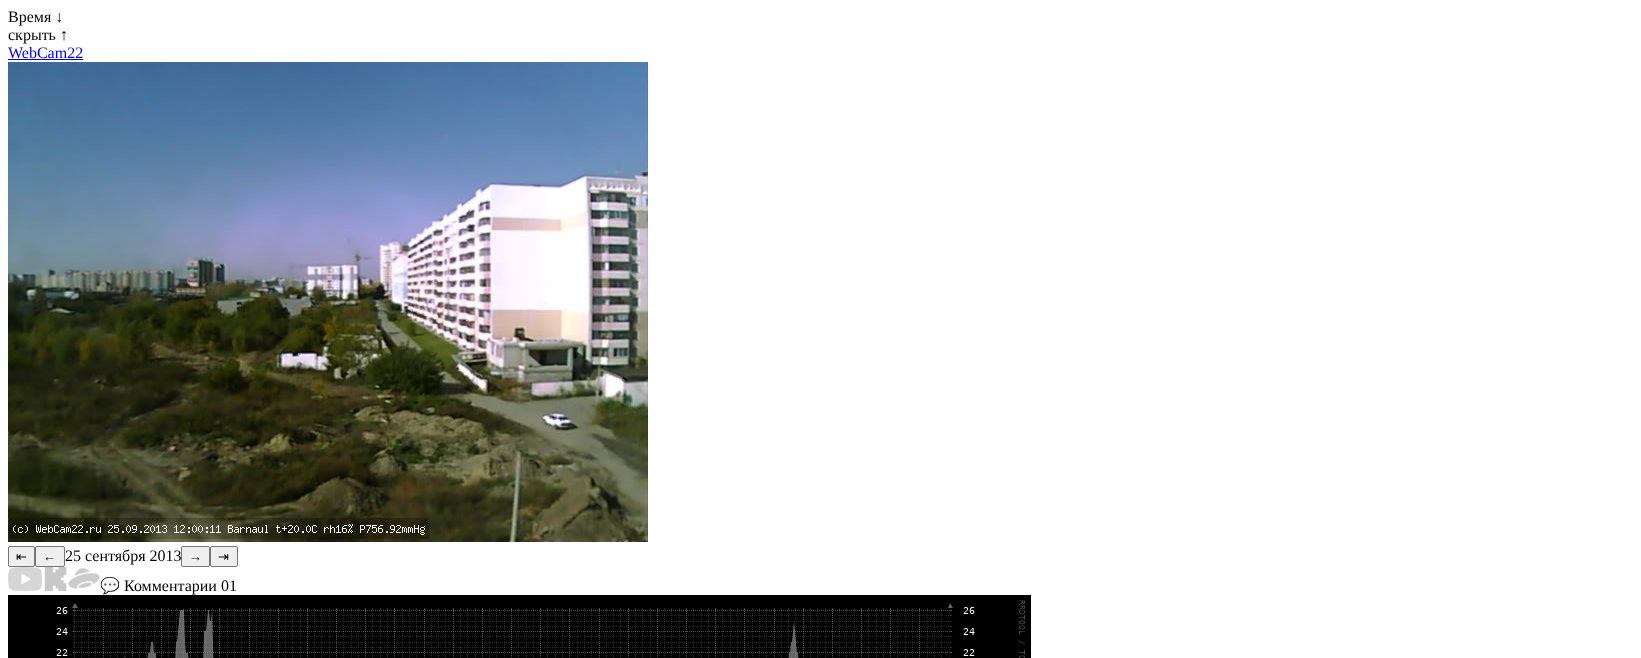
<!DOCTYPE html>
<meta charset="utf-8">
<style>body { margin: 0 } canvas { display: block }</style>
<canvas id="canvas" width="1641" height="658"></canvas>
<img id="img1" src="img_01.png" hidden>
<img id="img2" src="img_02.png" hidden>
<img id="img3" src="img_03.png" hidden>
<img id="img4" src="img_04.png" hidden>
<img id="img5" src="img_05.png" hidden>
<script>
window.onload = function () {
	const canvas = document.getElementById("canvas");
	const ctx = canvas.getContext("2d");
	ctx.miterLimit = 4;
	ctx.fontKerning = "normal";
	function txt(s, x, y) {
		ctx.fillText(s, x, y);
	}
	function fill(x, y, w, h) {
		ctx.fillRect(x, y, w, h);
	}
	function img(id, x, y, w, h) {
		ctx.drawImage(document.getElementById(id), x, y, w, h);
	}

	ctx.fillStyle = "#FFFFFF";
	fill(0, 0, 1641, 658);
	ctx.fillStyle = "#0000EE";
	fill(8, 59, 75, 1);
	img("img1", 8, 62, 640, 480);
	ctx.fillStyle = "#EFEFEF";
	ctx.beginPath();
	ctx.roundRect(8.5, 546.5, 26, 20, 1.5);
	ctx.fill();
	ctx.strokeStyle = "#767676";
	ctx.stroke();
	ctx.beginPath();
	ctx.roundRect(35.5, 546.5, 29, 20, 1.5);
	ctx.fill();
	ctx.stroke();
	ctx.beginPath();
	ctx.roundRect(181.5, 546.5, 28, 20, 1.5);
	ctx.fill();
	ctx.stroke();
	ctx.beginPath();
	ctx.roundRect(210.5, 546.5, 27, 20, 1.5);
	ctx.fill();
	ctx.stroke();
	img("img2", 8, 567, 34, 24);
	img("img3", 44, 567, 23, 24);
	img("img4", 68, 568, 32, 21);
	img("img5", 8, 595, 1023, 63);
	ctx.font = "16px Liberation Serif";
	ctx.fillStyle = "#000000";
	txt("Время ↓", 8, 22);
	txt("скрыть ↑", 8, 40);
	ctx.fillStyle = "#0000EE";
	txt("WebCam22", 8, 58);
	ctx.font = "13px DejaVu Sans";
	ctx.fillStyle = "#000000";
	txt("⇤", 16, 561);
	ctx.font = "13px Liberation Sans";
	txt("←", 43, 561);
	ctx.font = "16px Liberation Serif";
	txt("25 сентября 2013", 65, 561);
	ctx.font = "13px Liberation Sans";
	txt("→", 189, 561);
	ctx.font = "13px DejaVu Sans";
	txt("⇥", 218, 561);
	ctx.font = "16px Noto Color Emoji";
	txt("💬", 100, 591);
	ctx.font = "16px Liberation Serif";
	txt("Комментарии 01", 124, 591);
};
</script>
